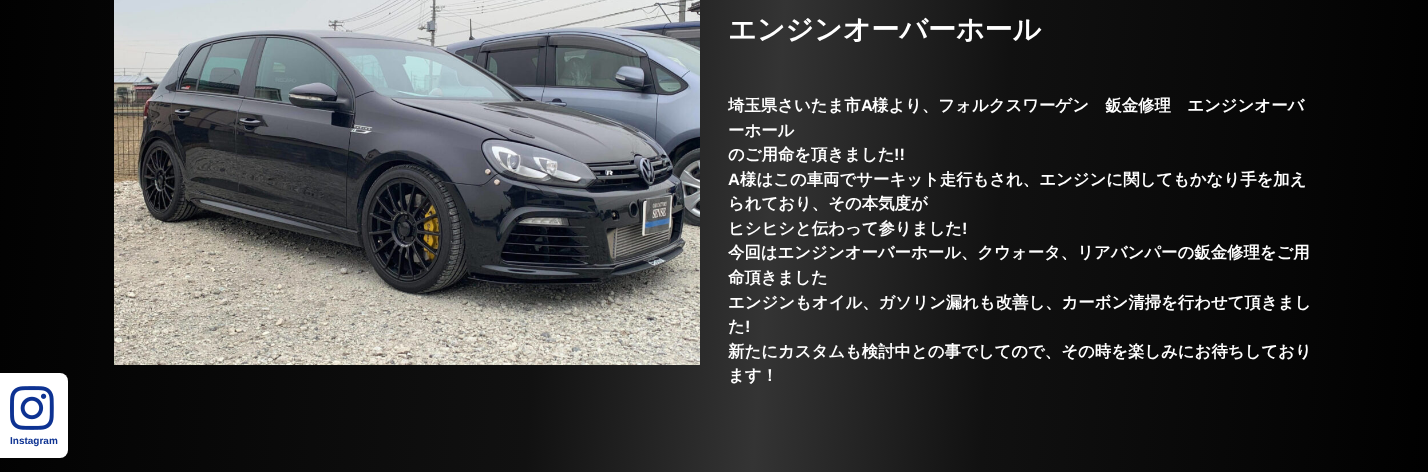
<!DOCTYPE html>
<meta charset="utf-8">
<style>body { margin: 0 } canvas { display: block }</style>
<canvas id="canvas" width="1428" height="472"></canvas>
<img id="img1" src="img_01.png" hidden>
<img id="img2" src="img_02.png" hidden>
<script>
window.onload = function () {
	const canvas = document.getElementById("canvas");
	const ctx = canvas.getContext("2d");
	ctx.miterLimit = 4;
	ctx.fontKerning = "normal";
	function txt(s, x, y) {
		ctx.fillText(s, x, y);
	}
	function fill(x, y, w, h) {
		ctx.fillRect(x, y, w, h);
	}
	function img(id, x, y, w, h) {
		ctx.drawImage(document.getElementById(id), x, y, w, h);
	}
	let gradient;

	ctx.fillStyle = "#FFFFFF";
	fill(0, 0, 1428, 472);
	gradient = ctx.createLinearGradient(-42, -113, 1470, -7.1);
	gradient.addColorStop(0, "#000000");
	gradient.addColorStop(0.4, "#111111");
	gradient.addColorStop(0.55, "#343434");
	gradient.addColorStop(0.7, "#111111");
	gradient.addColorStop(1, "#000000");
	ctx.fillStyle = gradient;
	fill(0, 0, 1428, 472);
	img("img1", 114, 0, 586, 365);
	ctx.fillStyle = "#FFFFFF";
	ctx.beginPath();
	ctx.roundRect(0, 373, 68, 85, [0, 8, 8, 0]);
	ctx.fill();
	img("img2", 10, 386, 44, 44);
	ctx.font = "bold 28px WenQuanYi Zen Hei";
	txt("エンジンオーバーホール", 728, 39);
	ctx.font = "bold 16.4px WenQuanYi Zen Hei";
	txt("埼玉県さいたま市", 728, 111);
	ctx.font = "bold 16.4px Liberation Sans";
	txt("A", 861, 111);
	ctx.font = "bold 16.4px WenQuanYi Zen Hei";
	txt("様より、フォルクスワーゲン　鈑金修理　エンジンオーバ", 872, 111);
	txt("ーホール", 728, 136);
	txt("のご用命を頂きました", 728, 160);
	ctx.font = "bold 16.4px Liberation Sans";
	txt("!!", 894, 160);
	txt("A", 728, 185);
	ctx.font = "bold 16.4px WenQuanYi Zen Hei";
	txt("様はこの車両でサーキット走行もされ、エンジンに関してもかなり手を加え", 740, 185);
	txt("られており、その本気度が", 728, 209);
	txt("ヒシヒシと伝わって参りました", 728, 234);
	ctx.font = "bold 16.4px Liberation Sans";
	txt("!", 962, 234);
	ctx.font = "bold 16.4px WenQuanYi Zen Hei";
	txt("今回はエンジンオーバーホール、クウォータ、リアバンパーの鈑金修理をご用", 728, 258);
	txt("命頂きました", 728, 283);
	txt("エンジンもオイル、ガソリン漏れも改善し、カーボン清掃を行わせて頂きまし", 728, 308);
	txt("た", 728, 332);
	ctx.font = "bold 16.4px Liberation Sans";
	txt("!", 745, 332);
	ctx.font = "bold 16.4px WenQuanYi Zen Hei";
	txt("新たにカスタムも検討中との事でしてので、その時を楽しみにお待ちしており", 728, 357);
	txt("ます！", 728, 381);
	ctx.font = "bold 10px Liberation Sans";
	ctx.fillStyle = "#0D3292";
	txt("Instagram", 10, 444);
};
</script>
